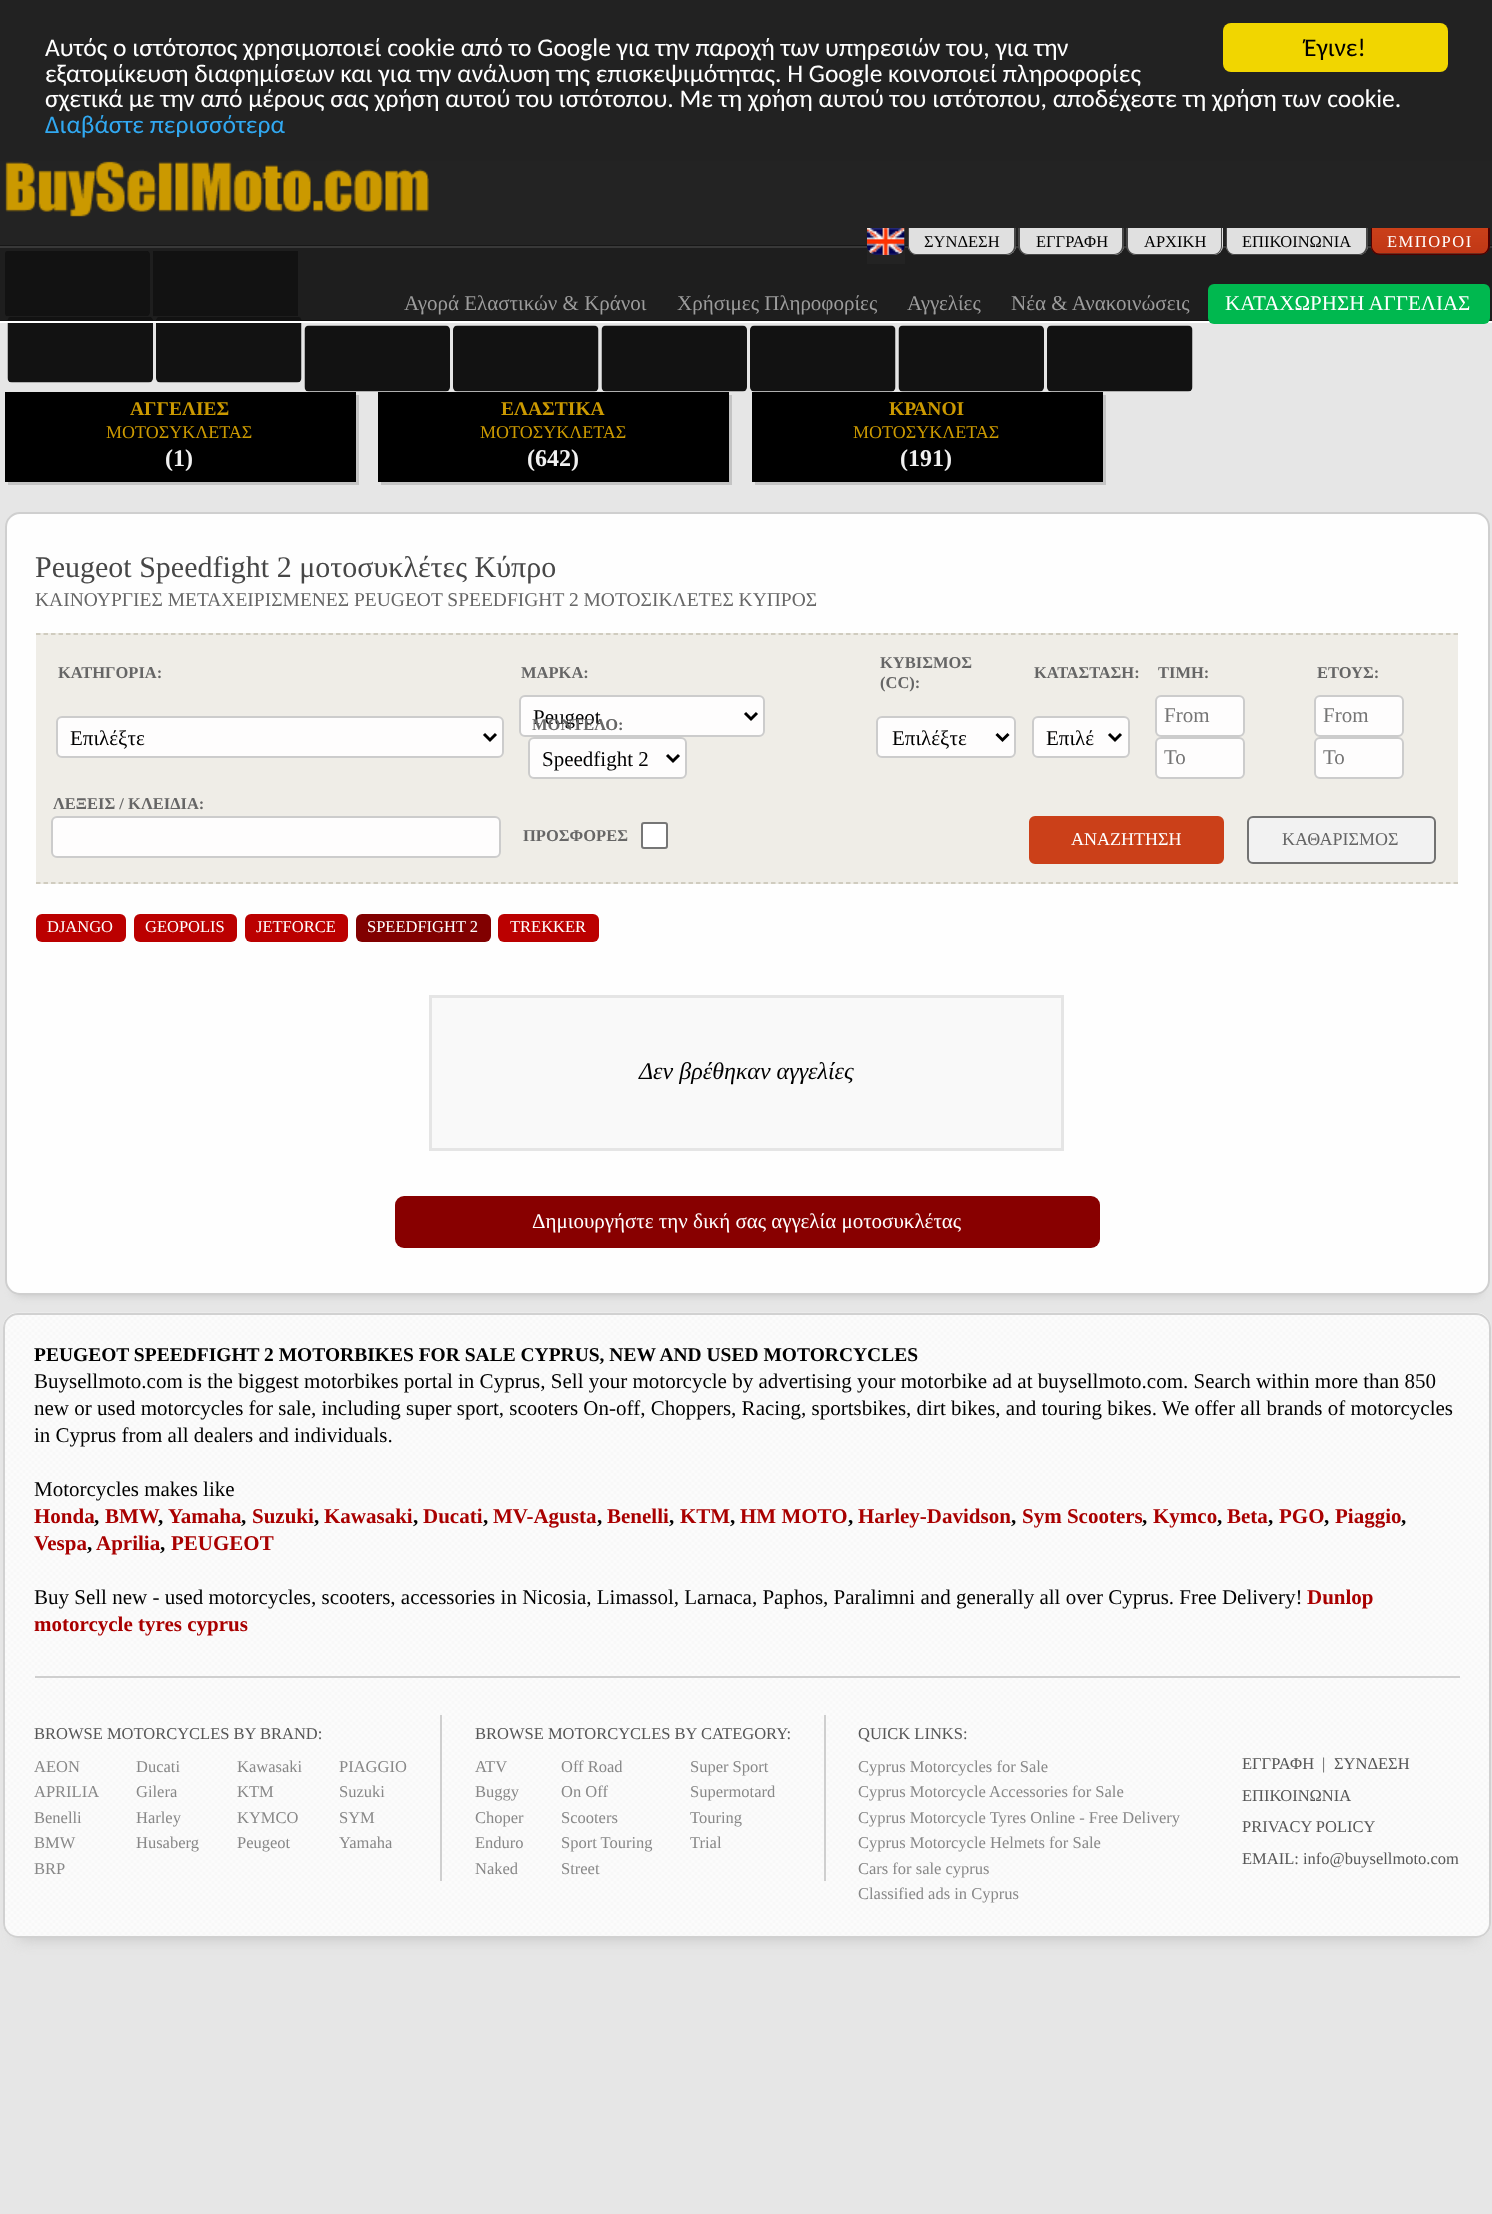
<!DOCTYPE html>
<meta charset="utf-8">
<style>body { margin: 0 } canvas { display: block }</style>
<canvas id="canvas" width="1492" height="2214"></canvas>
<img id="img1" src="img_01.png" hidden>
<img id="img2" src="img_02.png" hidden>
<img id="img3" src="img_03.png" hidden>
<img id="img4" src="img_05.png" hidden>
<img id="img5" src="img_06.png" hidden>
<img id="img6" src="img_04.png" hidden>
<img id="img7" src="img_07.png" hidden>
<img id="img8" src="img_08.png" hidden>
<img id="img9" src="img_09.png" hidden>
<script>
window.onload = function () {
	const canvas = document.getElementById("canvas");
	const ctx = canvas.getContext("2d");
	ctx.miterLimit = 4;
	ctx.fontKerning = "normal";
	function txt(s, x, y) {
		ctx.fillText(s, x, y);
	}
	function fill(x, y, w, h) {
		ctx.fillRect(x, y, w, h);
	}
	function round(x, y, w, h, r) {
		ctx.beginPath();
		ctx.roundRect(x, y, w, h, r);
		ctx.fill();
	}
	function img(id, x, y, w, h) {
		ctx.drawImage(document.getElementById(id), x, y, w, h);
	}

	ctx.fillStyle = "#E6E6E6";
	fill(0, 0, 1492, 2214);
	ctx.fillStyle = "#222222";
	fill(0, 0, 1492, 161);
	ctx.fillStyle = "#F1D600";
	round(1223, 23, 225, 49, 8);
	ctx.fillStyle = "#232323";
	fill(0, 161, 1492, 84);
	ctx.fillStyle = "#171717";
	fill(0, 245, 1492, 1);
	img("img1", 5, 161, 424, 56);
	ctx.fillStyle = "#1E1E1E";
	fill(0, 248, 1492, 72);
	ctx.fillStyle = "#383838";
	fill(0, 246, 1492, 2);
	ctx.fillStyle = "#232323";
	fill(867, 245, 38, 19);
	img("img2", 867, 228, 38, 27);
	ctx.fillStyle = "#E0E0E0";
	ctx.beginPath();
	ctx.roundRect(908, 228, 108, 27, [0, 0, 9, 9]);
	ctx.fill();
	ctx.fillStyle = "#474747";
	ctx.beginPath();
	ctx.moveTo(908, 228);
	ctx.lineTo(1016, 228);
	ctx.lineTo(1016, 246);
	ctx.bezierCurveTo(1016, 251, 1011, 255, 1006, 255);
	ctx.lineTo(916, 255);
	ctx.bezierCurveTo(912, 255, 908, 251, 908, 246);
	ctx.closePath();
	ctx.moveTo(909, 228);
	ctx.lineTo(1014, 228);
	ctx.lineTo(1014, 246);
	ctx.bezierCurveTo(1014, 250, 1011, 254, 1006, 254);
	ctx.lineTo(916, 254);
	ctx.bezierCurveTo(912, 254, 909, 250, 909, 246);
	ctx.closePath();
	ctx.fill("evenodd");
	ctx.fillStyle = "#E0E0E0";
	ctx.beginPath();
	ctx.roundRect(1019, 228, 105, 27, [0, 0, 9, 9]);
	ctx.fill();
	ctx.fillStyle = "#474747";
	ctx.beginPath();
	ctx.moveTo(1018, 228);
	ctx.lineTo(1124, 228);
	ctx.lineTo(1124, 246);
	ctx.bezierCurveTo(1124, 251, 1119, 255, 1114, 255);
	ctx.lineTo(1028, 255);
	ctx.bezierCurveTo(1023, 255, 1018, 251, 1018, 246);
	ctx.closePath();
	ctx.moveTo(1020, 228);
	ctx.lineTo(1122, 228);
	ctx.lineTo(1122, 246);
	ctx.bezierCurveTo(1122, 250, 1119, 254, 1114, 254);
	ctx.lineTo(1028, 254);
	ctx.bezierCurveTo(1023, 254, 1020, 250, 1020, 246);
	ctx.closePath();
	ctx.fill("evenodd");
	ctx.fillStyle = "#E0E0E0";
	ctx.beginPath();
	ctx.roundRect(1127, 228, 96, 27, [0, 0, 9, 9]);
	ctx.fill();
	ctx.fillStyle = "#474747";
	ctx.beginPath();
	ctx.moveTo(1126, 228);
	ctx.lineTo(1222, 228);
	ctx.lineTo(1222, 246);
	ctx.bezierCurveTo(1222, 251, 1218, 255, 1214, 255);
	ctx.lineTo(1136, 255);
	ctx.bezierCurveTo(1131, 255, 1126, 251, 1126, 246);
	ctx.closePath();
	ctx.moveTo(1128, 228);
	ctx.lineTo(1221, 228);
	ctx.lineTo(1221, 246);
	ctx.bezierCurveTo(1221, 250, 1218, 254, 1214, 254);
	ctx.lineTo(1136, 254);
	ctx.bezierCurveTo(1131, 254, 1128, 250, 1128, 246);
	ctx.closePath();
	ctx.fill("evenodd");
	ctx.fillStyle = "#E0E0E0";
	ctx.beginPath();
	ctx.roundRect(1226, 228, 142, 27, [0, 0, 9, 9]);
	ctx.fill();
	ctx.fillStyle = "#474747";
	ctx.beginPath();
	ctx.moveTo(1226, 228);
	ctx.lineTo(1368, 228);
	ctx.lineTo(1368, 246);
	ctx.bezierCurveTo(1368, 251, 1364, 255, 1359, 255);
	ctx.lineTo(1234, 255);
	ctx.bezierCurveTo(1230, 255, 1226, 251, 1226, 246);
	ctx.closePath();
	ctx.moveTo(1227, 228);
	ctx.lineTo(1366, 228);
	ctx.lineTo(1366, 246);
	ctx.bezierCurveTo(1366, 250, 1363, 254, 1359, 254);
	ctx.lineTo(1234, 254);
	ctx.bezierCurveTo(1230, 254, 1227, 250, 1227, 246);
	ctx.closePath();
	ctx.fill("evenodd");
	img("img3", 1371, 228, 119, 26);
	ctx.fillStyle = "#4D0000";
	ctx.beginPath();
	ctx.moveTo(1371, 228);
	ctx.lineTo(1490, 228);
	ctx.lineTo(1490, 246);
	ctx.bezierCurveTo(1490, 251, 1485, 255, 1480, 255);
	ctx.lineTo(1380, 255);
	ctx.bezierCurveTo(1375, 255, 1371, 251, 1371, 246);
	ctx.closePath();
	ctx.moveTo(1372, 228);
	ctx.lineTo(1488, 228);
	ctx.lineTo(1488, 246);
	ctx.bezierCurveTo(1488, 250, 1485, 254, 1480, 254);
	ctx.lineTo(1380, 254);
	ctx.bezierCurveTo(1376, 254, 1372, 250, 1372, 246);
	ctx.closePath();
	ctx.fill("evenodd");
	ctx.fillStyle = "#121212";
	fill(0, 320, 1492, 1);
	img("img4", 7, 317, 146, 66);
	img("img5", 156, 317, 146, 66);
	ctx.fillStyle = "#FFFFFF";
	fill(0, 321, 1492, 2);
	ctx.fillStyle = "#00B84F";
	round(1208, 284, 282, 40, 6);
	img("img6", 5, 251, 145, 65);
	ctx.fillStyle = "#121212";
	fill(153, 251, 145, 65);
	img("img7", 304, 325, 146, 67);
	img("img8", 453, 325, 146, 67);
	img("img7", 601, 325, 146, 67);
	img("img8", 750, 325, 146, 67);
	img("img7", 898, 325, 146, 67);
	img("img8", 1047, 325, 146, 67);
	ctx.fillStyle = "#C4C4C4";
	ctx.beginPath();
	ctx.moveTo(8, 482);
	ctx.lineTo(8, 485);
	ctx.lineTo(359, 485);
	ctx.lineTo(359, 395);
	ctx.lineTo(356, 395);
	ctx.lineTo(356, 482);
	ctx.closePath();
	ctx.fill();
	ctx.fillStyle = "#000000";
	fill(5, 392, 351, 90);
	ctx.fillStyle = "#C4C4C4";
	ctx.beginPath();
	ctx.moveTo(381, 482);
	ctx.lineTo(381, 485);
	ctx.lineTo(732, 485);
	ctx.lineTo(732, 395);
	ctx.lineTo(729, 395);
	ctx.lineTo(729, 482);
	ctx.closePath();
	ctx.fill();
	ctx.fillStyle = "#000000";
	fill(378, 392, 351, 90);
	ctx.fillStyle = "#C4C4C4";
	ctx.beginPath();
	ctx.moveTo(755, 482);
	ctx.lineTo(755, 485);
	ctx.lineTo(1106, 485);
	ctx.lineTo(1106, 395);
	ctx.lineTo(1102, 395);
	ctx.lineTo(1102, 482);
	ctx.closePath();
	ctx.fill();
	ctx.fillStyle = "#000000";
	fill(752, 392, 351, 90);
	ctx.fillStyle = "#C1C1C1";
	ctx.filter = "blur(4.5px)";
	ctx.beginPath();
	ctx.roundRect(14, 530, 1467, 765, 6);
	ctx.fill();
	ctx.filter = "none";
	ctx.fillStyle = "#FEFEFE";
	ctx.beginPath();
	ctx.roundRect(6, 513, 1483, 781, 14);
	ctx.fill();
	ctx.strokeStyle = "#CFCFCF";
	ctx.lineWidth = 2;
	ctx.stroke();
	ctx.fillStyle = "#EFEDE7";
	fill(36, 633, 1422, 251);
	ctx.beginPath();
	ctx.moveTo(36, 634);
	ctx.lineTo(1458, 634);
	ctx.strokeStyle = "#C6C1B3";
	ctx.lineWidth = 1.5;
	ctx.setLineDash([4.5, 3]);
	ctx.stroke();
	ctx.beginPath();
	ctx.moveTo(36, 883);
	ctx.lineTo(1458, 883);
	ctx.stroke();
	ctx.fillStyle = "#FEFDFD";
	ctx.beginPath();
	ctx.roundRect(57, 717, 446, 40, 5);
	ctx.fill();
	ctx.strokeStyle = "#CCCCCC";
	ctx.lineWidth = 2;
	ctx.setLineDash([]);
	ctx.stroke();
	ctx.beginPath();
	ctx.moveTo(484, 734);
	ctx.lineTo(490, 740);
	ctx.lineTo(496, 734);
	ctx.strokeStyle = "#000000";
	ctx.lineWidth = 3;
	ctx.stroke();
	ctx.beginPath();
	ctx.roundRect(520, 696, 244, 40, 5);
	ctx.fill();
	ctx.strokeStyle = "#CCCCCC";
	ctx.lineWidth = 2;
	ctx.stroke();
	ctx.beginPath();
	ctx.moveTo(745, 713);
	ctx.lineTo(751, 719);
	ctx.lineTo(757, 713);
	ctx.strokeStyle = "#000000";
	ctx.lineWidth = 3;
	ctx.stroke();
	ctx.beginPath();
	ctx.roundRect(529, 738, 157, 40, 5);
	ctx.fill();
	ctx.strokeStyle = "#CCCCCC";
	ctx.lineWidth = 2;
	ctx.stroke();
	ctx.beginPath();
	ctx.moveTo(667, 755);
	ctx.lineTo(673, 761);
	ctx.lineTo(679, 755);
	ctx.strokeStyle = "#000000";
	ctx.lineWidth = 3;
	ctx.stroke();
	ctx.beginPath();
	ctx.roundRect(877, 717, 138, 40, 5);
	ctx.fill();
	ctx.strokeStyle = "#CCCCCC";
	ctx.lineWidth = 2;
	ctx.stroke();
	ctx.beginPath();
	ctx.moveTo(996.5, 734);
	ctx.lineTo(1002.5, 740);
	ctx.lineTo(1008.5, 734);
	ctx.strokeStyle = "#000000";
	ctx.lineWidth = 3;
	ctx.stroke();
	ctx.beginPath();
	ctx.roundRect(1033, 717, 96, 40, 5);
	ctx.fill();
	ctx.strokeStyle = "#CCCCCC";
	ctx.lineWidth = 2;
	ctx.stroke();
	ctx.beginPath();
	ctx.moveTo(1109, 734);
	ctx.lineTo(1115, 740);
	ctx.lineTo(1121, 734);
	ctx.strokeStyle = "#000000";
	ctx.lineWidth = 3;
	ctx.stroke();
	ctx.beginPath();
	ctx.roundRect(1156, 696, 88, 40, 5);
	ctx.fill();
	ctx.strokeStyle = "#CCCCCC";
	ctx.lineWidth = 2;
	ctx.stroke();
	ctx.beginPath();
	ctx.roundRect(1156, 738, 88, 40, 5);
	ctx.fill();
	ctx.stroke();
	ctx.beginPath();
	ctx.roundRect(1315, 696, 88, 40, 5);
	ctx.fill();
	ctx.stroke();
	ctx.beginPath();
	ctx.roundRect(1315, 738, 88, 40, 5);
	ctx.fill();
	ctx.stroke();
	ctx.beginPath();
	ctx.roundRect(52, 817, 448, 40, 5);
	ctx.fill();
	ctx.stroke();
	ctx.fillStyle = "#FFFFFF";
	ctx.beginPath();
	ctx.roundRect(642, 823, 25, 25, 2);
	ctx.fill();
	ctx.strokeStyle = "#767676";
	ctx.stroke();
	ctx.fillStyle = "#CB4019";
	ctx.beginPath();
	ctx.roundRect(1030, 817, 193, 46, 5);
	ctx.fill();
	ctx.strokeStyle = "#CB4019";
	ctx.stroke();
	ctx.fillStyle = "#F2F2F2";
	ctx.beginPath();
	ctx.roundRect(1248, 817, 187, 46, 5);
	ctx.fill();
	ctx.strokeStyle = "#727272";
	ctx.stroke();
	ctx.fillStyle = "#BB0000";
	round(36, 914, 90, 28, 6);
	round(134, 914, 103, 28, 6);
	round(245, 914, 103, 28, 6);
	ctx.fillStyle = "#810000";
	round(356, 914, 135, 28, 6);
	ctx.fillStyle = "#BB0000";
	round(498, 914, 101, 28, 6);
	ctx.fillStyle = "#F9F9F9";
	ctx.beginPath();
	ctx.rect(430.5, 996.5, 632, 153);
	ctx.fill();
	ctx.strokeStyle = "#E5E5E5";
	ctx.lineWidth = 3;
	ctx.stroke();
	ctx.fillStyle = "#880000";
	round(395, 1196, 705, 52, 9);
	ctx.fillStyle = "#C1C1C1";
	ctx.filter = "blur(7.5px)";
	ctx.beginPath();
	ctx.rect(18, 1343, 1458, 595);
	ctx.fill();
	ctx.filter = "none";
	img("img9", 3, 1312, 1488, 625);
	ctx.beginPath();
	ctx.roundRect(4, 1314, 1486, 623, 14);
	ctx.strokeStyle = "#D1D1D1";
	ctx.lineWidth = 2;
	ctx.stroke();
	ctx.fillStyle = "#CFCFCF";
	fill(35, 1676, 1425, 2);
	fill(440, 1715, 2, 166);
	fill(824, 1715, 2, 166);
	ctx.font = "25.5px Carlito";
	ctx.fillStyle = "#FFFFFF";
	txt("Αυτός ο ιστότοπος χρησιμοποιεί cookie από το Google για την παροχή των υπηρεσιών του, για την", 45, 56);
	txt("εξατομίκευση διαφημίσεων και για την ανάλυση της επισκεψιμότητας. Η Google κοινοποιεί πληροφορίες", 45, 82);
	txt("σχετικά με την από μέρους σας χρήση αυτού του ιστότοπου. Με τη χρήση αυτού του ιστότοπου, αποδέχεστε τη χρήση των cookie.", 45, 107);
	ctx.fillStyle = "#31A8F0";
	txt("Διαβάστε περισσότερα", 45, 133);
	ctx.fillStyle = "#000000";
	txt("Έγινε!", 1304, 56);
	ctx.font = "16.5px Liberation Serif";
	txt("ΣΥΝΔΕΣΗ", 924, 247);
	txt("ΕΓΓΡΑΦΗ", 1036, 247);
	txt("ΑΡΧΙΚΗ", 1144, 247);
	txt("ΕΠΙΚΟΙΝΩΝΙΑ", 1242, 247);
	ctx.letterSpacing = "1.5px";
	ctx.fillStyle = "#FFFFFF";
	txt("ΕΜΠΟΡΟΙ", 1387, 247);
	ctx.letterSpacing = "0px";
	ctx.font = "21px Liberation Serif";
	ctx.fillStyle = "#9C9C9C";
	txt("Αγορά Ελαστικών & Κράνοι", 404, 310);
	txt("Χρήσιμες Πληροφορίες", 677, 310);
	txt("Αγγελίες", 907, 310);
	txt("Νέα & Ανακοινώσεις", 1011, 310);
	ctx.fillStyle = "#FFFFFF";
	txt("ΚΑΤΑΧΩΡΗΣΗ ΑΓΓΕΛΙΑΣ", 1225, 310);
	ctx.font = "bold 19.5px Liberation Serif";
	ctx.fillStyle = "#CB9900";
	txt("ΑΓΓΕΛΙΕΣ", 130, 415);
	ctx.font = "18px Liberation Serif";
	txt("ΜΟΤΟΣΥΚΛΕΤΑΣ", 106, 438);
	ctx.font = "bold 24px Liberation Serif";
	ctx.fillStyle = "#F1F1F1";
	txt("(1)", 165, 466);
	ctx.font = "bold 19.5px Liberation Serif";
	ctx.fillStyle = "#CB9900";
	txt("ΕΛΑΣΤΙΚΑ", 501, 415);
	ctx.font = "18px Liberation Serif";
	txt("ΜΟΤΟΣΥΚΛΕΤΑΣ", 480, 438);
	ctx.font = "bold 24px Liberation Serif";
	ctx.fillStyle = "#F1F1F1";
	txt("(642)", 527, 466);
	ctx.font = "bold 19.5px Liberation Serif";
	ctx.fillStyle = "#CB9900";
	txt("ΚΡΑΝΟΙ", 889, 415);
	ctx.font = "18px Liberation Serif";
	txt("ΜΟΤΟΣΥΚΛΕΤΑΣ", 853, 438);
	ctx.font = "bold 24px Liberation Serif";
	ctx.fillStyle = "#F1F1F1";
	txt("(191)", 900, 466);
	ctx.font = "30px Liberation Serif";
	ctx.fillStyle = "#474747";
	txt("Peugeot Speedfight 2 μοτοσυκλέτες Κύπρο", 35, 577);
	ctx.font = "19.5px Liberation Serif";
	ctx.fillStyle = "#666666";
	txt("ΚΑΙΝΟΥΡΓΙΕΣ ΜΕΤΑΧΕΙΡΙΣΜΕΝΕΣ PEUGEOT SPEEDFIGHT 2 ΜΟΤΟΣΙΚΛΕΤΕΣ ΚΥΠΡΟΣ", 35, 606);
	ctx.font = "bold 16.5px Liberation Serif";
	txt("ΚΑΤΗΓΟΡΙΑ:", 58, 678);
	txt("ΜΑΡΚΑ:", 521, 678);
	txt("ΚΥΒΙΣΜΟΣ", 880, 668);
	txt("(CC):", 880, 688);
	txt("ΚΑΤΑΣΤΑΣΗ:", 1034, 678);
	txt("ΤΙΜΗ:", 1158, 678);
	txt("ΕΤΟΥΣ:", 1317, 678);
	ctx.font = "21px Liberation Serif";
	ctx.fillStyle = "#000000";
	txt("Επιλέξτε", 70, 745);
	txt("Peugeot", 533, 724);
	ctx.font = "bold 16.5px Liberation Serif";
	ctx.fillStyle = "#666666";
	txt("ΜΟΝΤΕΛΟ:", 532, 730);
	ctx.font = "21px Liberation Serif";
	ctx.fillStyle = "#000000";
	txt("Speedfight 2", 542, 766);
	txt("Επιλέξτε", 892, 745);
	txt("Επιλέ", 1046, 745);
	ctx.fillStyle = "#757575";
	txt("From", 1164, 722);
	txt("To", 1164, 764);
	txt("From", 1323, 722);
	txt("To", 1323, 764);
	ctx.font = "bold 16.5px Liberation Serif";
	ctx.fillStyle = "#666666";
	txt("ΛΕΞΕΙΣ / ΚΛΕΙΔΙΑ:", 53, 809);
	txt("ΠΡΟΣΦΟΡΕΣ", 523, 841);
	ctx.font = "18px Liberation Serif";
	ctx.fillStyle = "#FFFFFF";
	txt("ΑΝΑΖΗΤΗΣΗ", 1071, 845);
	ctx.fillStyle = "#666666";
	txt("ΚΑΘΑΡΙΣΜΟΣ", 1282, 845);
	ctx.font = "16.5px Liberation Serif";
	ctx.fillStyle = "#FFFFFF";
	txt("DJANGO", 47, 932);
	txt("GEOPOLIS", 145, 932);
	txt("JETFORCE", 256, 932);
	txt("SPEEDFIGHT 2", 367, 932);
	txt("TREKKER", 510, 932);
	ctx.font = "italic 24px Liberation Serif";
	ctx.fillStyle = "#000000";
	txt("Δεν βρέθηκαν αγγελίες", 639, 1079);
	ctx.font = "21px Liberation Serif";
	ctx.fillStyle = "#FFFFFF";
	txt("Δημιουργήστε την δική σας αγγελία μοτοσυκλέτας", 532, 1228);
	ctx.font = "bold 19.5px Liberation Serif";
	ctx.fillStyle = "#000000";
	txt("PEUGEOT SPEEDFIGHT 2 MOTORBIKES FOR SALE CYPRUS, NEW AND USED MOTORCYCLES", 34, 1361);
	ctx.font = "21px Liberation Serif";
	txt("Buysellmoto.com is the biggest motorbikes portal in Cyprus, Sell your motorcycle by advertising your motorbike ad at buysellmoto.com. Search within more than 850", 34, 1388);
	txt("new or used motorcycles for sale, including super sport, scooters On-off, Choppers, Racing, sportsbikes, dirt bikes, and touring bikes. We offer all brands of motorcycles", 34, 1415);
	txt("in Cyprus from all dealers and individuals.", 34, 1442);
	txt("Motorcycles makes like", 34, 1496);
	ctx.font = "bold 21px Liberation Serif";
	ctx.fillStyle = "#A90000";
	txt("Honda", 34, 1523);
	ctx.fillStyle = "#000000";
	txt(",", 94, 1523);
	ctx.fillStyle = "#A90000";
	txt("BMW", 105, 1523);
	ctx.fillStyle = "#000000";
	txt(",", 158, 1523);
	ctx.fillStyle = "#A90000";
	txt("Yamaha", 168, 1523);
	ctx.fillStyle = "#000000";
	txt(",", 241, 1523);
	ctx.fillStyle = "#A90000";
	txt("Suzuki", 252, 1523);
	ctx.fillStyle = "#000000";
	txt(",", 314, 1523);
	ctx.fillStyle = "#A90000";
	txt("Kawasaki", 324, 1523);
	ctx.fillStyle = "#000000";
	txt(",", 413, 1523);
	ctx.fillStyle = "#A90000";
	txt("Ducati", 423, 1523);
	ctx.fillStyle = "#000000";
	txt(",", 483, 1523);
	ctx.fillStyle = "#A90000";
	txt("MV-Agusta", 493, 1523);
	ctx.fillStyle = "#000000";
	txt(",", 597, 1523);
	ctx.fillStyle = "#A90000";
	txt("Benelli", 607, 1523);
	ctx.fillStyle = "#000000";
	txt(",", 669, 1523);
	ctx.fillStyle = "#A90000";
	txt("KTM", 680, 1523);
	ctx.fillStyle = "#000000";
	txt(",", 730, 1523);
	ctx.fillStyle = "#A90000";
	txt("HM MOTO", 740, 1523);
	ctx.fillStyle = "#000000";
	txt(",", 848, 1523);
	ctx.fillStyle = "#A90000";
	txt("Harley-Davidson", 858, 1523);
	ctx.fillStyle = "#000000";
	txt(",", 1011, 1523);
	ctx.fillStyle = "#A90000";
	txt("Sym Scooters", 1022, 1523);
	ctx.fillStyle = "#000000";
	txt(",", 1142, 1523);
	ctx.fillStyle = "#A90000";
	txt("Kymco", 1153, 1523);
	ctx.fillStyle = "#000000";
	txt(",", 1217, 1523);
	ctx.fillStyle = "#A90000";
	txt("Beta", 1227, 1523);
	ctx.fillStyle = "#000000";
	txt(",", 1268, 1523);
	ctx.fillStyle = "#A90000";
	txt("PGO", 1279, 1523);
	ctx.fillStyle = "#000000";
	txt(",", 1324, 1523);
	ctx.fillStyle = "#A90000";
	txt("Piaggio", 1335, 1523);
	ctx.fillStyle = "#000000";
	txt(",", 1401, 1523);
	ctx.fillStyle = "#A90000";
	txt("Vespa", 34, 1550);
	ctx.fillStyle = "#000000";
	txt(",", 87, 1550);
	ctx.fillStyle = "#A90000";
	txt("Aprilia", 96, 1550);
	ctx.fillStyle = "#000000";
	txt(",", 160, 1550);
	ctx.fillStyle = "#A90000";
	txt("PEUGEOT", 171, 1550);
	ctx.font = "21px Liberation Serif";
	ctx.fillStyle = "#000000";
	txt("Buy Sell new - used motorcycles, scooters, accessories in Nicosia, Limassol, Larnaca, Paphos, Paralimni and generally all over Cyprus. Free Delivery!", 34, 1604);
	ctx.font = "bold 21px Liberation Serif";
	ctx.fillStyle = "#A90000";
	txt("Dunlop", 1307, 1604);
	txt("motorcycle tyres cyprus", 34, 1631);
	ctx.font = "16.5px Liberation Serif";
	ctx.fillStyle = "#565656";
	txt("BROWSE MOTORCYCLES BY BRAND:", 34, 1739);
	ctx.fillStyle = "#888888";
	txt("AEON", 34, 1772);
	txt("APRILIA", 34, 1797);
	txt("Benelli", 34, 1823);
	txt("BMW", 34, 1848);
	txt("BRP", 34, 1874);
	txt("Ducati", 136, 1772);
	txt("Gilera", 136, 1797);
	txt("Harley", 136, 1823);
	txt("Husaberg", 136, 1848);
	txt("Kawasaki", 237, 1772);
	txt("KTM", 237, 1797);
	txt("KYMCO", 237, 1823);
	txt("Peugeot", 237, 1848);
	txt("PIAGGIO", 339, 1772);
	txt("Suzuki", 339, 1797);
	txt("SYM", 339, 1823);
	txt("Yamaha", 339, 1848);
	ctx.fillStyle = "#565656";
	txt("BROWSE MOTORCYCLES BY CATEGORY:", 475, 1739);
	ctx.fillStyle = "#888888";
	txt("ATV", 475, 1772);
	txt("Buggy", 475, 1797);
	txt("Choper", 475, 1823);
	txt("Enduro", 475, 1848);
	txt("Naked", 475, 1874);
	txt("Off Road", 561, 1772);
	txt("On Off", 561, 1797);
	txt("Scooters", 561, 1823);
	txt("Sport Touring", 561, 1848);
	txt("Street", 561, 1874);
	txt("Super Sport", 690, 1772);
	txt("Supermotard", 690, 1797);
	txt("Touring", 690, 1823);
	txt("Trial", 690, 1848);
	ctx.fillStyle = "#565656";
	txt("QUICK LINKS:", 858, 1739);
	ctx.fillStyle = "#888888";
	txt("Cyprus Motorcycles for Sale", 858, 1772);
	txt("Cyprus Motorcycle Accessories for Sale", 858, 1797);
	txt("Cyprus Motorcycle Tyres Online - Free Delivery", 858, 1823);
	txt("Cyprus Motorcycle Helmets for Sale", 858, 1848);
	txt("Cars for sale cyprus", 858, 1874);
	txt("Classified ads in Cyprus", 858, 1899);
	ctx.fillStyle = "#565656";
	txt("ΕΓΓΡΑΦΗ", 1242, 1769);
	txt("|", 1322, 1769);
	txt("ΣΥΝΔΕΣΗ", 1334, 1769);
	txt("ΕΠΙΚΟΙΝΩΝΙΑ", 1242, 1801);
	txt("PRIVACY POLICY", 1242, 1832);
	txt("EMAIL: info@buysellmoto.com", 1242, 1864);
};
</script>
